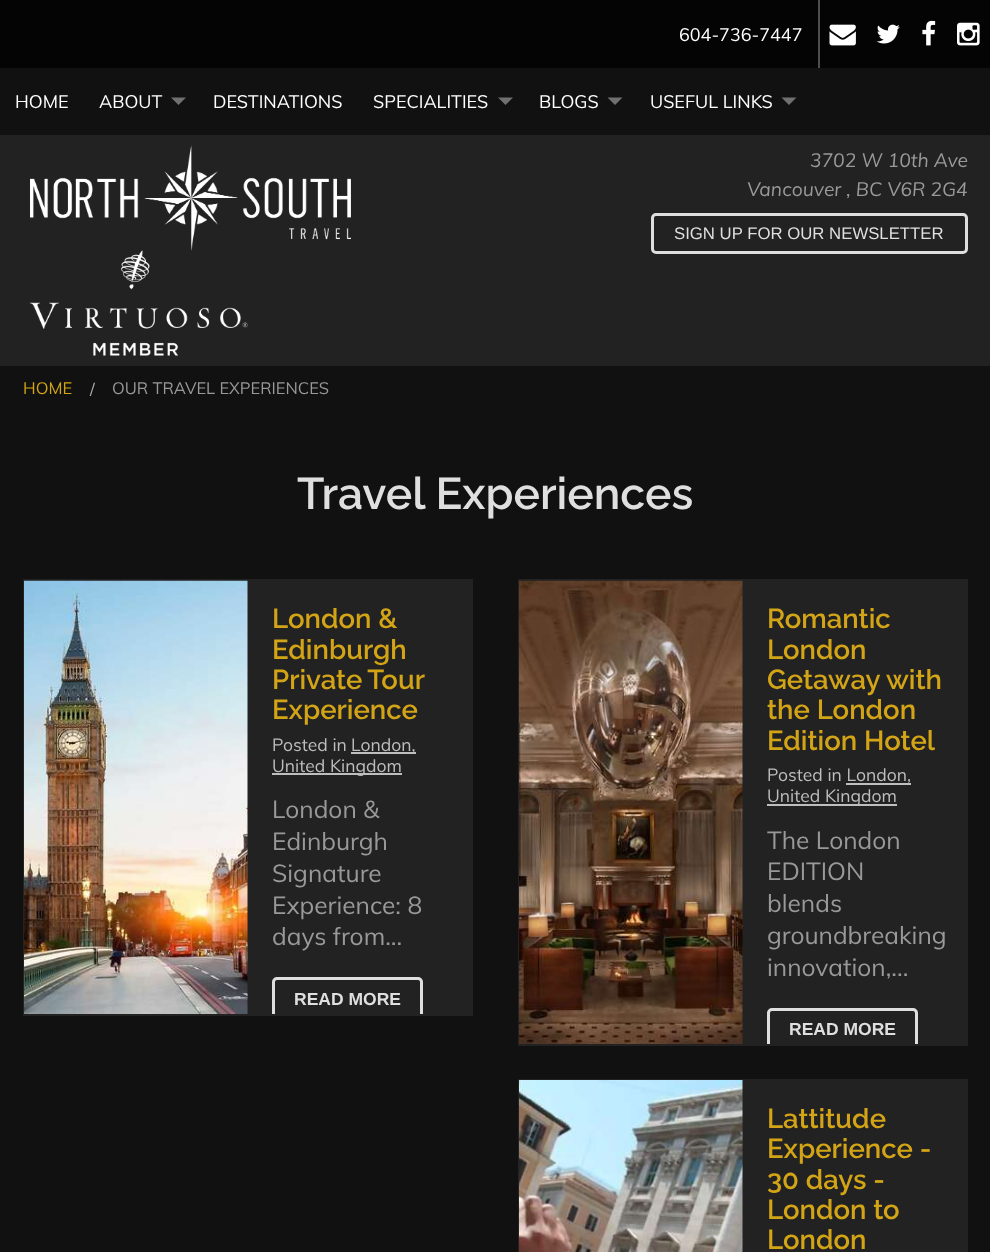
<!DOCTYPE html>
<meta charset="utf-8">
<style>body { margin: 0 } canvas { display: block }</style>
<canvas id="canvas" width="990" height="1252"></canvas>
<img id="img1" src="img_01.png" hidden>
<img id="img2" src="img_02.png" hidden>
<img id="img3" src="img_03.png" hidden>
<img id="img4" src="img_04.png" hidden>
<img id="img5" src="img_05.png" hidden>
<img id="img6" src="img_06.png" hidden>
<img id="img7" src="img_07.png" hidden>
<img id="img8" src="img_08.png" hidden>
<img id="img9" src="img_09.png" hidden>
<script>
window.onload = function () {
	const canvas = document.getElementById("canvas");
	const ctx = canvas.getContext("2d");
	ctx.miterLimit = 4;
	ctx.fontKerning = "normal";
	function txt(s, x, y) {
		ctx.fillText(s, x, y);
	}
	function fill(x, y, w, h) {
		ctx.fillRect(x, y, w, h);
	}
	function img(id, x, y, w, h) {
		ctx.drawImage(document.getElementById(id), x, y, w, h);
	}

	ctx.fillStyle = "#111111";
	fill(0, 0, 990, 1252);
	ctx.fillStyle = "#040404";
	fill(0, 0, 990, 68);
	ctx.fillStyle = "#4E4E4E";
	fill(818, 0, 2, 68);
	img("img1", 829, 24, 27, 22);
	img("img2", 876, 24, 24, 20);
	img("img3", 922, 20, 14, 26);
	img("img4", 957, 22, 23, 24);
	ctx.fillStyle = "#707070";
	ctx.beginPath();
	ctx.moveTo(171, 97.5);
	ctx.lineTo(186, 97.5);
	ctx.lineTo(178.5, 105);
	ctx.closePath();
	ctx.fill();
	ctx.beginPath();
	ctx.moveTo(498, 97.5);
	ctx.lineTo(513, 97.5);
	ctx.lineTo(505.5, 105);
	ctx.closePath();
	ctx.fill();
	ctx.beginPath();
	ctx.moveTo(607.5, 97.5);
	ctx.lineTo(622.5, 97.5);
	ctx.lineTo(615, 105);
	ctx.closePath();
	ctx.fill();
	ctx.beginPath();
	ctx.moveTo(781.5, 97.5);
	ctx.lineTo(796.5, 97.5);
	ctx.lineTo(789, 105);
	ctx.closePath();
	ctx.fill();
	ctx.fillStyle = "#222222";
	fill(0, 135, 990, 231);
	img("img5", 30, 145, 321, 106);
	img("img6", 30, 250, 218, 106);
	ctx.beginPath();
	ctx.roundRect(652.5, 214.5, 314, 38, 3.5);
	ctx.strokeStyle = "#DFDFDF";
	ctx.lineWidth = 3;
	ctx.stroke();
	fill(23, 579, 450, 437);
	img("img7", 24, 580, 224, 434);
	ctx.fillStyle = "#BEBEBE";
	fill(351, 752, 65, 2);
	fill(272, 773, 130, 2);
	ctx.save();
	ctx.beginPath();
	ctx.rect(24, 581, 447, 433);
	ctx.clip();
	ctx.beginPath();
	ctx.roundRect(273.5, 978.5, 148, 40, 3.5);
	ctx.stroke();
	ctx.restore();
	ctx.fillStyle = "#222222";
	fill(518, 579, 450, 467);
	img("img8", 519, 580, 224, 464);
	ctx.fillStyle = "#BEBEBE";
	fill(846, 783, 65, 2);
	fill(767, 804, 130, 2);
	ctx.save();
	ctx.beginPath();
	ctx.rect(519, 581, 447, 463);
	ctx.clip();
	ctx.beginPath();
	ctx.roundRect(768.5, 1009.5, 148, 39, 3.5);
	ctx.stroke();
	ctx.restore();
	ctx.fillStyle = "#222222";
	fill(518, 1079, 450, 173);
	img("img9", 519, 1080, 224, 172);
	ctx.font = "18px Muli";
	ctx.fillStyle = "#FFFFFF";
	txt("604-736-7447", 679, 41);
	txt("HOME", 15, 108);
	txt("ABOUT", 99, 108);
	txt("DESTINATIONS", 213, 108);
	txt("SPECIALITIES", 373, 108);
	txt("BLOGS", 539, 108);
	txt("USEFUL LINKS", 650, 108);
	ctx.font = "italic 19.25px Muli";
	ctx.fillStyle = "#999999";
	txt("3702 W 10th Ave", 810, 167);
	txt("Vancouver , BC V6R 2G4", 747, 196);
	ctx.font = "16.75px Liberation Sans";
	ctx.fillStyle = "#DFDFDF";
	txt("SIGN UP FOR OUR NEWSLETTER", 674, 239);
	ctx.font = "16.5px Muli";
	ctx.fillStyle = "#D3A516";
	txt("HOME", 23, 394);
	ctx.fillStyle = "#AAAAAA";
	txt("/", 90, 395);
	ctx.fillStyle = "#999999";
	txt("OUR TRAVEL EXPERIENCES", 112, 394);
	ctx.font = "600 44.5px Raleway";
	ctx.fillStyle = "#DFDFDF";
	txt("Travel Experiences", 297, 509);
	ctx.font = "600 27.5px Raleway";
	ctx.fillStyle = "#D3A516";
	txt("London &", 272, 628);
	txt("Edinburgh", 272, 659);
	ctx.wordSpacing = "-1px";
	txt("Private Tour", 272, 689);
	ctx.wordSpacing = "0px";
	txt("Experience", 272, 719);
	ctx.font = "17.5px Muli";
	ctx.fillStyle = "#BEBEBE";
	txt("Posted in", 272, 751);
	txt("London,", 351, 751);
	txt("United Kingdom", 272, 772);
	ctx.font = "24.5px Muli";
	ctx.fillStyle = "#999999";
	txt("London &", 272, 818);
	txt("Edinburgh", 272, 850);
	txt("Signature", 272, 882);
	txt("Experience: 8", 272, 914);
	txt("days from...", 272, 945);
	ctx.font = "bold 17.5px Liberation Sans";
	ctx.fillStyle = "#DFDFDF";
	txt("READ MORE", 294, 1005);
	ctx.font = "600 27.5px Raleway";
	ctx.fillStyle = "#D3A516";
	txt("Romantic", 767, 628);
	txt("London", 767, 659);
	txt("Getaway with", 767, 689);
	txt("the London", 767, 719);
	txt("Edition Hotel", 767, 750);
	ctx.font = "17.5px Muli";
	ctx.fillStyle = "#BEBEBE";
	txt("Posted in London,", 767, 781);
	txt("United Kingdom", 767, 802);
	ctx.font = "24.5px Muli";
	ctx.fillStyle = "#999999";
	txt("The London", 767, 849);
	txt("EDITION", 767, 880);
	txt("blends", 767, 912);
	txt("groundbreaking", 767, 944);
	txt("innovation,...", 767, 976);
	ctx.font = "bold 17.5px Liberation Sans";
	ctx.fillStyle = "#DFDFDF";
	txt("READ MORE", 789, 1035);
	ctx.font = "600 27.5px Raleway";
	ctx.fillStyle = "#D3A516";
	txt("Lattitude", 767, 1128);
	txt("Experience -", 767, 1158);
	txt("30 days -", 767, 1189);
	txt("London to", 767, 1219);
	txt("London", 767, 1249);
};
</script>
